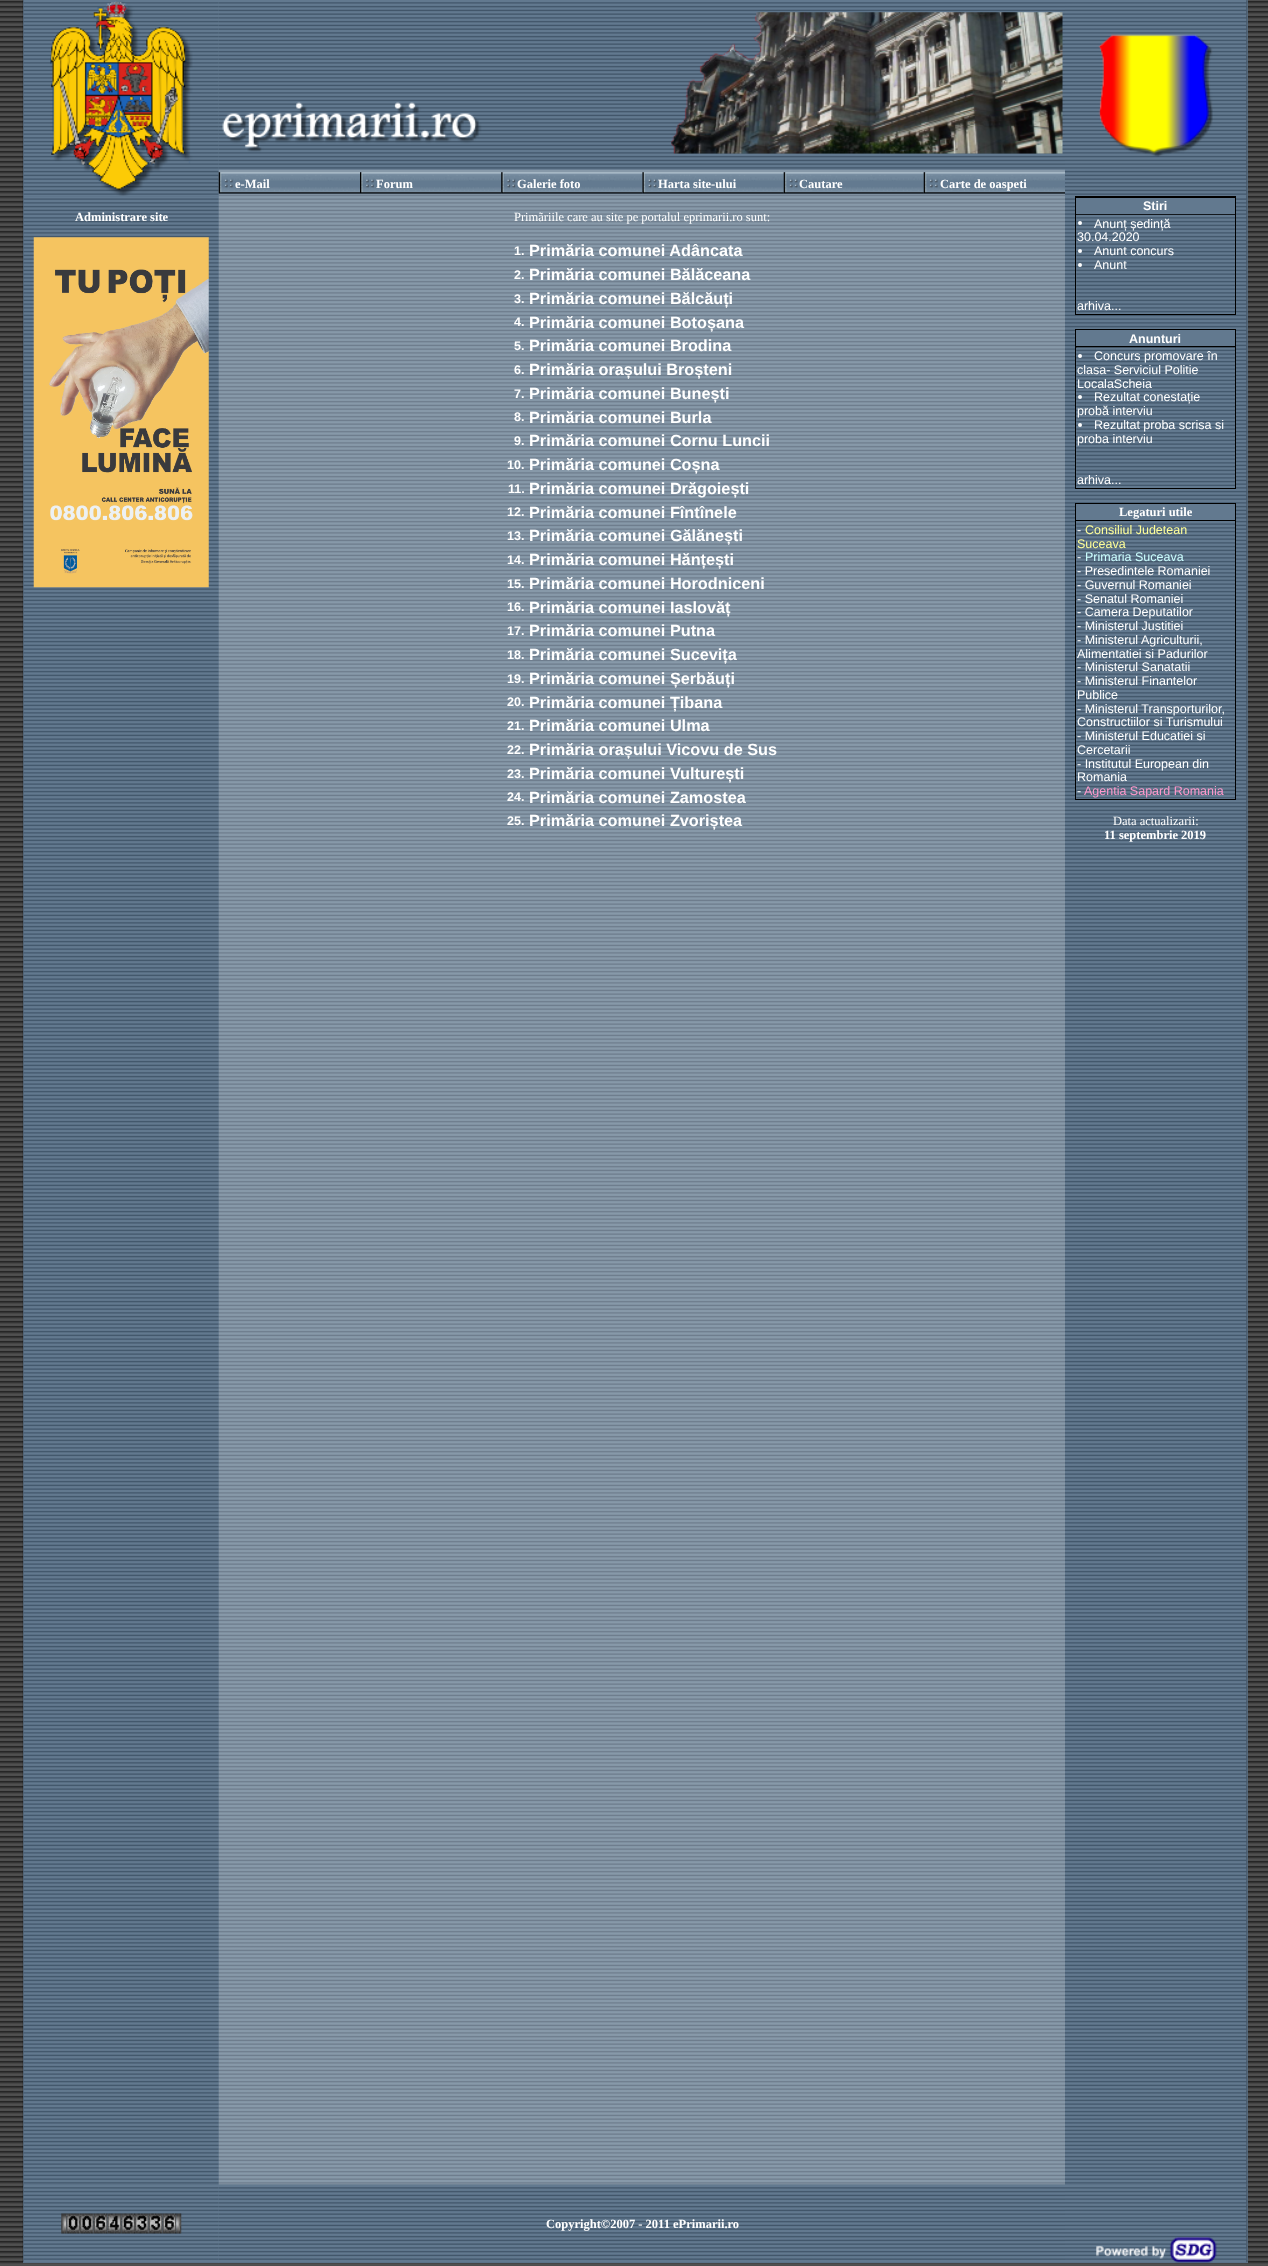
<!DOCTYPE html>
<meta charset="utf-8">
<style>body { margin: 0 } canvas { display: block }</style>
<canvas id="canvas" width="1268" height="2266"></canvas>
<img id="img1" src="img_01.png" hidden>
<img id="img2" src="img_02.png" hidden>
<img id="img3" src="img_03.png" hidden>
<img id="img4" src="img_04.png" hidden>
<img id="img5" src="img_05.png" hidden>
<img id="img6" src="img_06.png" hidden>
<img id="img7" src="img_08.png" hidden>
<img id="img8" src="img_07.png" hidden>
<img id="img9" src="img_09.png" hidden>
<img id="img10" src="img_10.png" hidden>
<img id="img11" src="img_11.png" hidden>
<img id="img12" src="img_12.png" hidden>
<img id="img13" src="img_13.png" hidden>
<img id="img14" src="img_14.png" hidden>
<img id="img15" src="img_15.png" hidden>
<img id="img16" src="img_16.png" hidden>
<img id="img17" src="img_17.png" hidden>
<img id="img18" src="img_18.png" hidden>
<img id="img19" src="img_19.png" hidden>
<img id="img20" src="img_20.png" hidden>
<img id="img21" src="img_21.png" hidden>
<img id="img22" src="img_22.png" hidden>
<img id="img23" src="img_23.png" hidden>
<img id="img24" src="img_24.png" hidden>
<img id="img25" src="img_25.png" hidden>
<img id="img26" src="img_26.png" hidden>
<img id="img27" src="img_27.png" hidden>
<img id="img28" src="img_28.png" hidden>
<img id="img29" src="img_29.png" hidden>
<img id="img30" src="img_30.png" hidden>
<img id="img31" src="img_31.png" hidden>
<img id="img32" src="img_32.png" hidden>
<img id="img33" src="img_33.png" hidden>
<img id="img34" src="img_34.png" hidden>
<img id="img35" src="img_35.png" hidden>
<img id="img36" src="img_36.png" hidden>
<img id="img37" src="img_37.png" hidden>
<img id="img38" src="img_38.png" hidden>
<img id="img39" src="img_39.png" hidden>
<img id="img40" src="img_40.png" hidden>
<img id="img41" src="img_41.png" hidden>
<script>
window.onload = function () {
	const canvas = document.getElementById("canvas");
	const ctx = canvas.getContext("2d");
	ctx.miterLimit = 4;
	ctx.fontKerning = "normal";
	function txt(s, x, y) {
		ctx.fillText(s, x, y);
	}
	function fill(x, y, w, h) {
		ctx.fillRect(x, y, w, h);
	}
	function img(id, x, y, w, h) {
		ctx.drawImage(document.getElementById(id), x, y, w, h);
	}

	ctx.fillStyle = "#FFFFFF";
	fill(0, 0, 1268, 2266);
	img("img1", 0, 0, 1268, 2266);
	ctx.fillStyle = "#62798F";
	fill(23, 0, 1225, 2263);
	img("img2", 22, 0, 2, 196);
	img("img3", 23, 0, 196, 196);
	img("img4", 50, 0, 143, 196);
	img("img5", 219, 2, 846, 167);
	img("img6", 222, 12, 841, 142);
	img("img7", 1065, 2, 182, 193);
	img("img8", 1246, 0, 2, 196);
	img("img9", 1098, 34, 115, 123);
	img("img10", 218, 169, 847, 27);
	fill(219, 173, 846, 21);
	img("img11", 218, 172, 142, 22);
	img("img12", 360, 172, 142, 22);
	img("img13", 501, 172, 142, 22);
	img("img14", 642, 172, 142, 22);
	img("img15", 783, 172, 141, 22);
	img("img16", 923, 172, 142, 22);
	img("img17", 22, 196, 2, 1989);
	img("img18", 23, 196, 196, 1988);
	img("img19", 33, 237, 176, 351);
	img("img20", 218, 196, 847, 1989);
	img("img21", 1065, 198, 182, 1986);
	ctx.fillStyle = "#000000";
	fill(1075, 196, 161, 119);
	ctx.fillStyle = "#62798F";
	fill(1076, 198, 159, 16);
	fill(1076, 215, 159, 99);
	img("img22", 1076, 214, 159, 99);
	ctx.fillStyle = "#FFFFFF";
	ctx.beginPath();
	ctx.arc(1080, 223, 2, 0, Math.PI * 2);
	ctx.fill();
	ctx.beginPath();
	ctx.arc(1080, 251, 2, 0, Math.PI * 2);
	ctx.fill();
	ctx.beginPath();
	ctx.arc(1080, 265, 2, 0, Math.PI * 2);
	ctx.fill();
	ctx.fillStyle = "#000000";
	fill(1075, 329, 161, 160);
	ctx.fillStyle = "#62798F";
	fill(1076, 330, 159, 16);
	fill(1076, 348, 159, 140);
	img("img23", 1076, 347, 159, 139);
	ctx.fillStyle = "#FFFFFF";
	ctx.beginPath();
	ctx.arc(1080, 356, 2, 0, Math.PI * 2);
	ctx.fill();
	ctx.beginPath();
	ctx.arc(1080, 397, 2, 0, Math.PI * 2);
	ctx.fill();
	ctx.beginPath();
	ctx.arc(1080, 425, 2, 0, Math.PI * 2);
	ctx.fill();
	ctx.fillStyle = "#000000";
	fill(1075, 503, 161, 297);
	ctx.fillStyle = "#62798F";
	fill(1076, 504, 159, 16);
	fill(1076, 521, 159, 278);
	img("img24", 1076, 523, 159, 276);
	img("img25", 1246, 196, 2, 1989);
	img("img26", 22, 2184, 2, 79);
	img("img27", 23, 2184, 196, 79);
	img("img28", 61, 2213, 6, 21);
	img("img29", 66, 2213, 14, 21);
	img("img30", 80, 2213, 14, 21);
	img("img31", 93, 2213, 15, 21);
	img("img32", 107, 2213, 15, 21);
	img("img33", 121, 2213, 14, 21);
	img("img34", 135, 2213, 14, 21);
	img("img35", 148, 2213, 15, 21);
	img("img36", 162, 2213, 15, 21);
	img("img37", 176, 2213, 6, 21);
	img("img38", 1065, 2184, 182, 79);
	img("img39", 1096, 2237, 121, 26);
	img("img40", 219, 2184, 846, 79);
	img("img41", 1246, 2184, 2, 79);
	ctx.font = "bold 12.5px Liberation Serif";
	ctx.fillStyle = "#FFFFFF";
	txt("e-Mail", 235, 188);
	txt("Forum", 376, 188);
	txt("Galerie foto", 517, 188);
	txt("Harta site-ului", 658, 188);
	txt("Cautare", 799, 188);
	txt("Carte de oaspeti", 940, 188);
	txt("Administrare site", 75, 221);
	ctx.font = "12.5px Liberation Serif";
	txt("Primãriile care au site pe portalul eprimarii.ro sunt:", 514, 221);
	ctx.font = "bold 12.5px Liberation Sans";
	txt("1.", 514, 255);
	ctx.font = "bold 16.25px Liberation Sans";
	txt("Primăria comunei Adâncata", 529, 256);
	ctx.font = "bold 12.5px Liberation Sans";
	txt("2.", 514, 279);
	ctx.font = "bold 16.25px Liberation Sans";
	txt("Primăria comunei Bălăceana", 529, 280);
	ctx.font = "bold 12.5px Liberation Sans";
	txt("3.", 514, 303);
	ctx.font = "bold 16.25px Liberation Sans";
	txt("Primăria comunei Bălcăuți", 529, 304);
	ctx.font = "bold 12.5px Liberation Sans";
	txt("4.", 514, 326);
	ctx.font = "bold 16.25px Liberation Sans";
	txt("Primăria comunei Botoșana", 529, 328);
	ctx.font = "bold 12.5px Liberation Sans";
	txt("5.", 514, 350);
	ctx.font = "bold 16.25px Liberation Sans";
	txt("Primăria comunei Brodina", 529, 351);
	ctx.font = "bold 12.5px Liberation Sans";
	txt("6.", 514, 374);
	ctx.font = "bold 16.25px Liberation Sans";
	txt("Primăria orașului Broșteni", 529, 375);
	ctx.font = "bold 12.5px Liberation Sans";
	txt("7.", 514, 398);
	ctx.font = "bold 16.25px Liberation Sans";
	txt("Primăria comunei Bunești", 529, 399);
	ctx.font = "bold 12.5px Liberation Sans";
	txt("8.", 514, 421);
	ctx.font = "bold 16.25px Liberation Sans";
	txt("Primăria comunei Burla", 529, 423);
	ctx.font = "bold 12.5px Liberation Sans";
	txt("9.", 514, 445);
	ctx.font = "bold 16.25px Liberation Sans";
	txt("Primăria comunei Cornu Luncii", 529, 446);
	ctx.font = "bold 12.5px Liberation Sans";
	txt("10.", 507, 469);
	ctx.font = "bold 16.25px Liberation Sans";
	txt("Primăria comunei Coșna", 529, 470);
	ctx.font = "bold 12.5px Liberation Sans";
	txt("11.", 508, 493);
	ctx.font = "bold 16.25px Liberation Sans";
	txt("Primăria comunei Drăgoiești", 529, 494);
	ctx.font = "bold 12.5px Liberation Sans";
	txt("12.", 507, 516);
	ctx.font = "bold 16.25px Liberation Sans";
	txt("Primăria comunei Fîntînele", 529, 518);
	ctx.font = "bold 12.5px Liberation Sans";
	txt("13.", 507, 540);
	ctx.font = "bold 16.25px Liberation Sans";
	txt("Primăria comunei Gălănești", 529, 541);
	ctx.font = "bold 12.5px Liberation Sans";
	txt("14.", 507, 564);
	ctx.font = "bold 16.25px Liberation Sans";
	txt("Primăria comunei Hănțești", 529, 565);
	ctx.font = "bold 12.5px Liberation Sans";
	txt("15.", 507, 588);
	ctx.font = "bold 16.25px Liberation Sans";
	txt("Primăria comunei Horodniceni", 529, 589);
	ctx.font = "bold 12.5px Liberation Sans";
	txt("16.", 507, 611);
	ctx.font = "bold 16.25px Liberation Sans";
	txt("Primăria comunei Iaslovăț", 529, 613);
	ctx.font = "bold 12.5px Liberation Sans";
	txt("17.", 507, 635);
	ctx.font = "bold 16.25px Liberation Sans";
	txt("Primăria comunei Putna", 529, 636);
	ctx.font = "bold 12.5px Liberation Sans";
	txt("18.", 507, 659);
	ctx.font = "bold 16.25px Liberation Sans";
	txt("Primăria comunei Sucevița", 529, 660);
	ctx.font = "bold 12.5px Liberation Sans";
	txt("19.", 507, 683);
	ctx.font = "bold 16.25px Liberation Sans";
	txt("Primăria comunei Șerbăuți", 529, 684);
	ctx.font = "bold 12.5px Liberation Sans";
	txt("20.", 507, 706);
	ctx.font = "bold 16.25px Liberation Sans";
	txt("Primăria comunei Țibana", 529, 708);
	ctx.font = "bold 12.5px Liberation Sans";
	txt("21.", 507, 730);
	ctx.font = "bold 16.25px Liberation Sans";
	txt("Primăria comunei Ulma", 529, 731);
	ctx.font = "bold 12.5px Liberation Sans";
	txt("22.", 507, 754);
	ctx.font = "bold 16.25px Liberation Sans";
	txt("Primăria orașului Vicovu de Sus", 529, 755);
	ctx.font = "bold 12.5px Liberation Sans";
	txt("23.", 507, 778);
	ctx.font = "bold 16.25px Liberation Sans";
	txt("Primăria comunei Vulturești", 529, 779);
	ctx.font = "bold 12.5px Liberation Sans";
	txt("24.", 507, 801);
	ctx.font = "bold 16.25px Liberation Sans";
	txt("Primăria comunei Zamostea", 529, 803);
	ctx.font = "bold 12.5px Liberation Sans";
	txt("25.", 507, 825);
	ctx.font = "bold 16.25px Liberation Sans";
	txt("Primăria comunei Zvoriștea", 529, 826);
	ctx.font = "bold 12.5px Liberation Sans";
	txt("Stiri", 1143, 210);
	ctx.font = "12.5px Liberation Sans";
	txt("Anunț ședință", 1094, 228);
	txt("30.04.2020", 1077, 241);
	txt("Anunt concurs", 1094, 255);
	txt("Anunt", 1094, 269);
	txt("arhiva...", 1077, 310);
	ctx.font = "bold 12.5px Liberation Sans";
	txt("Anunturi", 1129, 343);
	ctx.font = "12.5px Liberation Sans";
	txt("Concurs promovare în", 1094, 360);
	txt("clasa- Serviciul Politie", 1077, 374);
	txt("LocalaScheia", 1077, 388);
	txt("Rezultat conestație", 1094, 401);
	txt("probă interviu", 1077, 415);
	txt("Rezultat proba scrisa si", 1094, 429);
	txt("proba interviu", 1077, 443);
	txt("arhiva...", 1077, 484);
	ctx.font = "bold 12.5px Liberation Serif";
	txt("Legaturi utile", 1119, 516);
	ctx.font = "12.5px Liberation Sans";
	txt("-", 1077, 534);
	ctx.fillStyle = "#FFFF99";
	txt("Consiliul Judetean", 1085, 534);
	txt("Suceava", 1077, 548);
	ctx.fillStyle = "#FFFFFF";
	txt("-", 1077, 561);
	ctx.fillStyle = "#CCFFFF";
	txt("Primaria Suceava", 1085, 561);
	ctx.fillStyle = "#FFFFFF";
	txt("- Presedintele Romaniei", 1077, 575);
	txt("- Guvernul Romaniei", 1077, 589);
	txt("- Senatul Romaniei", 1077, 603);
	txt("- Camera Deputatilor", 1077, 616);
	txt("- Ministerul Justitiei", 1077, 630);
	txt("- Ministerul Agriculturii,", 1077, 644);
	txt("Alimentatiei si Padurilor", 1077, 658);
	txt("- Ministerul Sanatatii", 1077, 671);
	txt("- Ministerul Finantelor", 1077, 685);
	txt("Publice", 1077, 699);
	txt("- Ministerul Transporturilor,", 1077, 713);
	txt("Constructiilor si Turismului", 1077, 726);
	txt("- Ministerul Educatiei si", 1077, 740);
	txt("Cercetarii", 1077, 754);
	txt("- Institutul European din", 1077, 768);
	txt("Romania", 1077, 781);
	txt("-", 1077, 795);
	ctx.fillStyle = "#FF99CC";
	txt("Agentia Sapard Romania", 1084, 795);
	ctx.font = "12.5px Liberation Serif";
	ctx.fillStyle = "#FFFFFF";
	txt("Data actualizarii:", 1113, 825);
	ctx.font = "bold 12.5px Liberation Serif";
	txt("11 septembrie 2019", 1104, 839);
	txt("Copyright©2007 - 2011 ePrimarii.ro", 546, 2228);
};
</script>
